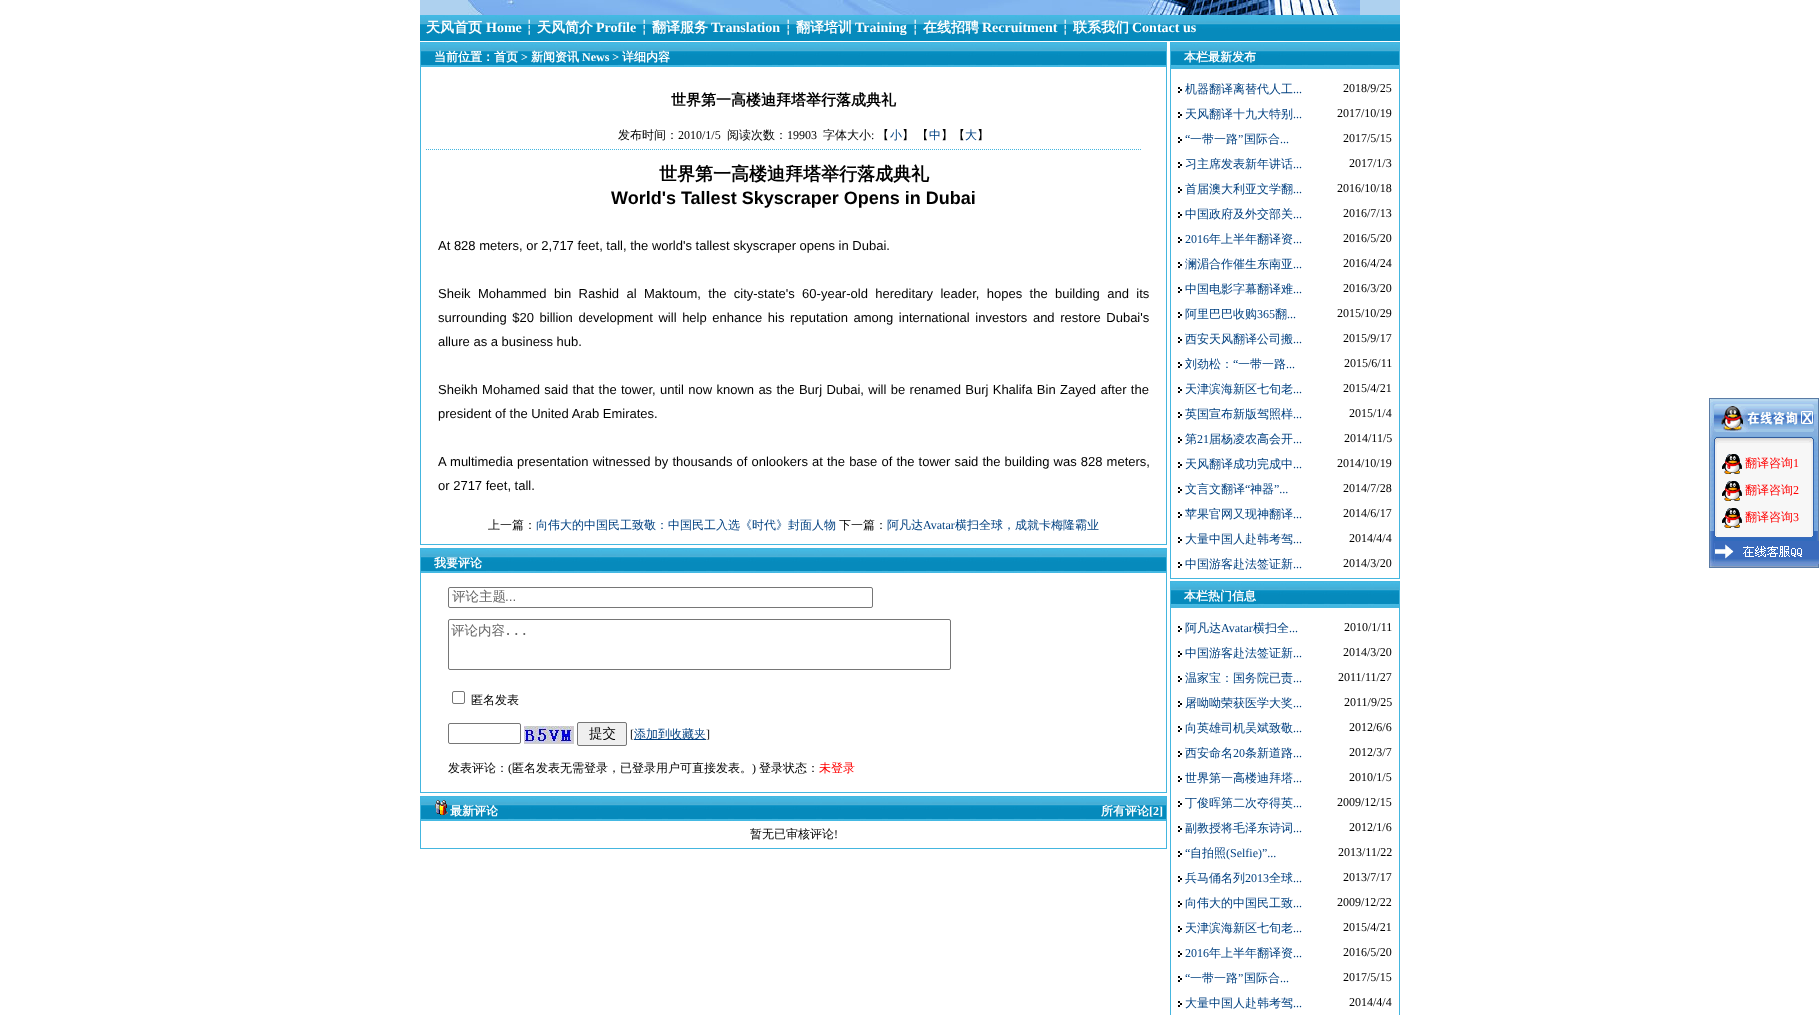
<!DOCTYPE html>
<meta charset="utf-8">
<style>body { margin: 0 } canvas { display: block }</style>
<canvas id="canvas" width="1820" height="1015"></canvas>
<img id="img1" src="img_01.png" hidden>
<img id="img2" src="img_02.png" hidden>
<img id="img3" src="img_03.png" hidden>
<img id="img4" src="img_04.png" hidden>
<img id="img5" src="img_05.png" hidden>
<img id="img6" src="img_06.png" hidden>
<img id="img7" src="img_07.png" hidden>
<img id="img8" src="img_08.png" hidden>
<img id="img9" src="img_09.png" hidden>
<img id="img10" src="img_10.png" hidden>
<img id="img11" src="img_11.png" hidden>
<script>
window.onload = function () {
	const canvas = document.getElementById("canvas");
	const ctx = canvas.getContext("2d");
	ctx.miterLimit = 4;
	ctx.fontKerning = "normal";
	function txt(s, x, y) {
		ctx.fillText(s, x, y);
	}
	function fill(x, y, w, h) {
		ctx.fillRect(x, y, w, h);
	}
	function img(id, x, y, w, h) {
		ctx.drawImage(document.getElementById(id), x, y, w, h);
	}

	ctx.fillStyle = "#FFFFFF";
	fill(0, 0, 1820, 1015);
	img("img1", 420, 0, 980, 15);
	img("img2", 420, 15, 980, 26);
	ctx.strokeStyle = "#44B6DF";
	ctx.strokeRect(420.5, 42.5, 746, 502);
	img("img3", 421, 43, 745, 24);
	ctx.beginPath();
	ctx.moveTo(426, 149.5);
	ctx.lineTo(1141, 149.5);
	ctx.setLineDash([1, 1]);
	ctx.stroke();
	ctx.setLineDash([]);
	ctx.strokeRect(420.5, 548.5, 746, 244);
	img("img3", 421, 549, 745, 24);
	ctx.beginPath();
	ctx.roundRect(448.5, 587.5, 424, 20, 1.5);
	ctx.strokeStyle = "#767676";
	ctx.stroke();
	ctx.beginPath();
	ctx.roundRect(448.5, 619.5, 502, 50, 1.5);
	ctx.stroke();
	ctx.beginPath();
	ctx.roundRect(452.5, 691.5, 12, 12, 1.5);
	ctx.stroke();
	ctx.beginPath();
	ctx.roundRect(448.5, 723.5, 72, 20, 1.5);
	ctx.stroke();
	img("img4", 524, 726, 50, 18);
	ctx.fillStyle = "#EFEFEF";
	ctx.beginPath();
	ctx.roundRect(577.5, 722.5, 49, 23, 1.5);
	ctx.fill();
	ctx.stroke();
	ctx.fillStyle = "#004080";
	fill(634, 739, 72, 1);
	ctx.strokeStyle = "#44B6DF";
	ctx.strokeRect(420.5, 796.5, 746, 52);
	img("img3", 421, 797, 745, 24);
	img("img5", 435, 800, 13, 15);
	ctx.strokeRect(1170.5, 42.5, 229, 536);
	img("img6", 1171, 43, 228, 25);
	ctx.fillStyle = "#44B6DF";
	fill(1171, 68, 228, 1);
	img("img7", 1178, 87, 4, 6);
	img("img7", 1178, 112, 4, 6);
	img("img7", 1178, 137, 4, 6);
	img("img7", 1178, 162, 4, 6);
	img("img7", 1178, 187, 4, 6);
	img("img7", 1178, 212, 4, 6);
	img("img7", 1178, 237, 4, 6);
	img("img7", 1178, 262, 4, 6);
	img("img7", 1178, 287, 4, 6);
	img("img7", 1178, 312, 4, 6);
	img("img7", 1178, 337, 4, 6);
	img("img7", 1178, 362, 4, 6);
	img("img7", 1178, 387, 4, 6);
	img("img7", 1178, 412, 4, 6);
	img("img7", 1178, 437, 4, 6);
	img("img7", 1178, 462, 4, 6);
	img("img7", 1178, 487, 4, 6);
	img("img7", 1178, 512, 4, 6);
	img("img7", 1178, 537, 4, 6);
	img("img7", 1178, 562, 4, 6);
	ctx.strokeRect(1170.5, 581.5, 229, 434);
	img("img6", 1171, 582, 228, 25);
	fill(1171, 607, 228, 1);
	img("img7", 1178, 626, 4, 6);
	img("img7", 1178, 651, 4, 6);
	img("img7", 1178, 676, 4, 6);
	img("img7", 1178, 701, 4, 6);
	img("img7", 1178, 726, 4, 6);
	img("img7", 1178, 751, 4, 6);
	img("img7", 1178, 776, 4, 6);
	img("img7", 1178, 801, 4, 6);
	img("img7", 1178, 826, 4, 6);
	img("img7", 1178, 851, 4, 6);
	img("img7", 1178, 876, 4, 6);
	img("img7", 1178, 901, 4, 6);
	img("img7", 1178, 926, 4, 6);
	img("img7", 1178, 951, 4, 6);
	img("img7", 1178, 976, 4, 6);
	img("img7", 1178, 1001, 4, 6);
	img("img8", 1709, 398, 110, 47);
	img("img9", 1709, 445, 110, 86);
	img("img10", 1722, 454, 20, 20);
	img("img10", 1722, 481, 20, 20);
	img("img10", 1722, 508, 20, 20);
	img("img11", 1709, 531, 110, 37);
	ctx.font = "bold 14px WenQuanYi Zen Hei";
	ctx.fillStyle = "#FFFFFF";
	txt("天风首页", 426, 32);
	ctx.font = "bold 14px Liberation Serif";
	txt("Home", 486, 32);
	ctx.font = "14px DejaVu Sans";
	txt("┆", 525, 32);
	ctx.font = "bold 14px WenQuanYi Zen Hei";
	txt("天风简介", 537, 32);
	ctx.font = "bold 14px Liberation Serif";
	txt("Profile", 596, 32);
	ctx.font = "14px DejaVu Sans";
	txt("┆", 640, 32);
	ctx.font = "bold 14px WenQuanYi Zen Hei";
	txt("翻译服务", 652, 32);
	ctx.font = "bold 14px Liberation Serif";
	txt("Translation", 711, 32);
	ctx.font = "14px DejaVu Sans";
	txt("┆", 784, 32);
	ctx.font = "bold 14px WenQuanYi Zen Hei";
	txt("翻译培训", 796, 32);
	ctx.font = "bold 14px Liberation Serif";
	txt("Training", 855, 32);
	ctx.font = "14px DejaVu Sans";
	txt("┆", 911, 32);
	ctx.font = "bold 14px WenQuanYi Zen Hei";
	txt("在线招聘", 923, 32);
	ctx.font = "bold 14px Liberation Serif";
	txt("Recruitment", 982, 32);
	ctx.font = "14px DejaVu Sans";
	txt("┆", 1061, 32);
	ctx.font = "bold 14px WenQuanYi Zen Hei";
	txt("联系我们", 1073, 32);
	ctx.font = "bold 14px Liberation Serif";
	txt("Contact us", 1132, 32);
	ctx.font = "bold 12px WenQuanYi Zen Hei";
	txt("当前位置：首页", 434, 61);
	ctx.font = "bold 12px Liberation Serif";
	txt(">", 521, 61);
	ctx.font = "bold 12px WenQuanYi Zen Hei";
	txt("新闻资讯", 531, 61);
	ctx.font = "bold 12px Liberation Serif";
	txt("News >", 582, 61);
	ctx.font = "bold 12px WenQuanYi Zen Hei";
	txt("详细内容", 622, 61);
	ctx.font = "bold 15px WenQuanYi Zen Hei";
	ctx.fillStyle = "#000000";
	txt("世界第一高楼迪拜塔举行落成典礼", 671, 105);
	ctx.font = "500 12px WenQuanYi Zen Hei";
	txt("发布时间：", 618, 139);
	ctx.font = "12px Liberation Serif";
	txt("2010/1/5", 678, 139);
	ctx.font = "500 12px WenQuanYi Zen Hei";
	txt("阅读次数：", 727, 139);
	ctx.font = "12px Liberation Serif";
	txt("19903", 787, 139);
	ctx.font = "500 12px WenQuanYi Zen Hei";
	txt("字体大小", 823, 139);
	ctx.font = "12px Liberation Serif";
	txt(":", 871, 139);
	ctx.font = "500 12px WenQuanYi Zen Hei";
	txt("【", 877, 139);
	ctx.fillStyle = "#004080";
	txt("小", 890, 139);
	ctx.wordSpacing = "-1px";
	ctx.fillStyle = "#000000";
	txt("】 【", 902, 139);
	ctx.wordSpacing = "0px";
	ctx.fillStyle = "#004080";
	txt("中", 929, 139);
	ctx.fillStyle = "#000000";
	txt("】【", 941, 139);
	ctx.fillStyle = "#004080";
	txt("大", 965, 139);
	ctx.fillStyle = "#000000";
	txt("】", 977, 139);
	ctx.font = "bold 18px WenQuanYi Zen Hei";
	txt("世界第一高楼迪拜塔举行落成典礼", 659, 180);
	ctx.font = "bold 18px Liberation Sans";
	txt("World's Tallest Skyscraper Opens in Dubai", 611, 204);
	ctx.font = "13px Liberation Sans";
	txt("At 828 meters, or 2,717 feet, tall, the world's tallest skyscraper opens in Dubai.", 438, 250);
	ctx.wordSpacing = "3.75px";
	txt("Sheik Mohammed bin Rashid al Maktoum, the city-state's 60-year-old hereditary leader, hopes the building and its", 438, 298);
	ctx.wordSpacing = "2px";
	txt("surrounding $20 billion development will help enhance his reputation among international investors and restore Dubai's", 438, 322);
	ctx.wordSpacing = "0px";
	txt("allure as a business hub.", 438, 346);
	ctx.wordSpacing = "0.75px";
	txt("Sheikh Mohamed said that the tower, until now known as the Burj Dubai, will be renamed Burj Khalifa Bin Zayed after the", 438, 394);
	ctx.wordSpacing = "0px";
	txt("president of the United Arab Emirates.", 438, 418);
	ctx.wordSpacing = "0.5px";
	txt("A multimedia presentation witnessed by thousands of onlookers at the base of the tower said the building was 828 meters,", 438, 466);
	ctx.wordSpacing = "0px";
	txt("or 2717 feet, tall.", 438, 490);
	ctx.font = "500 12px WenQuanYi Zen Hei";
	txt("上一篇：", 488, 529);
	ctx.fillStyle = "#004080";
	txt("向伟大的中国民工致敬：中国民工入选《时代》封面人物", 536, 529);
	ctx.fillStyle = "#000000";
	txt("下一篇：", 839, 529);
	ctx.fillStyle = "#004080";
	txt("阿凡达", 887, 529);
	ctx.font = "12px Liberation Serif";
	txt("Avatar", 923, 529);
	ctx.font = "500 12px WenQuanYi Zen Hei";
	txt("横扫全球，成就卡梅隆霸业", 955, 529);
	ctx.font = "bold 12px WenQuanYi Zen Hei";
	ctx.fillStyle = "#FFFFFF";
	txt("我要评论", 434, 567);
	ctx.font = "500 13.5px WenQuanYi Zen Hei";
	ctx.fillStyle = "#666666";
	txt("评论主题", 452, 601);
	ctx.font = "13.5px Liberation Sans";
	txt("...", 505, 601);
	ctx.font = "500 13.5px WenQuanYi Zen Hei";
	txt("评论内容", 451, 635);
	ctx.font = "13.5px DejaVu Sans Mono";
	txt("...", 504, 635);
	ctx.font = "500 12px WenQuanYi Zen Hei";
	ctx.fillStyle = "#000000";
	txt("匿名发表", 471, 704);
	ctx.font = "500 13.5px WenQuanYi Zen Hei";
	txt("提交", 589, 738);
	ctx.font = "12px Liberation Serif";
	txt("[", 630, 738);
	ctx.font = "500 12px WenQuanYi Zen Hei";
	ctx.fillStyle = "#004080";
	txt("添加到收藏夹", 634, 738);
	ctx.font = "12px Liberation Serif";
	ctx.fillStyle = "#000000";
	txt("]", 706, 738);
	ctx.font = "500 12px WenQuanYi Zen Hei";
	txt("发表评论：", 448, 772);
	ctx.font = "12px Liberation Serif";
	txt("(", 508, 772);
	ctx.font = "500 12px WenQuanYi Zen Hei";
	txt("匿名发表无需登录，已登录用户可直接发表。", 512, 772);
	ctx.font = "12px Liberation Serif";
	txt(")", 752, 772);
	ctx.font = "500 12px WenQuanYi Zen Hei";
	txt("登录状态：", 759, 772);
	ctx.fillStyle = "#FF0000";
	txt("未登录", 819, 772);
	ctx.font = "bold 12px WenQuanYi Zen Hei";
	ctx.fillStyle = "#FFFFFF";
	txt("最新评论", 450, 815);
	txt("所有评论", 1101, 815);
	ctx.font = "bold 12px Liberation Serif";
	txt("[2]", 1149, 815);
	ctx.font = "500 12px WenQuanYi Zen Hei";
	ctx.fillStyle = "#000000";
	txt("暂无已审核评论", 750, 838);
	ctx.font = "12px Liberation Serif";
	txt("!", 834, 838);
	ctx.font = "bold 12px WenQuanYi Zen Hei";
	ctx.fillStyle = "#FFFFFF";
	txt("本栏最新发布", 1184, 61);
	ctx.font = "500 12px WenQuanYi Zen Hei";
	ctx.fillStyle = "#004080";
	txt("机器翻译离替代人工", 1185, 93);
	ctx.font = "12px Liberation Serif";
	txt("...", 1293, 93);
	ctx.fillStyle = "#000000";
	txt("2018/9/25", 1343, 92);
	ctx.font = "500 12px WenQuanYi Zen Hei";
	ctx.fillStyle = "#004080";
	txt("天风翻译十九大特别", 1185, 118);
	ctx.font = "12px Liberation Serif";
	txt("...", 1293, 118);
	ctx.fillStyle = "#000000";
	txt("2017/10/19", 1337, 117);
	ctx.fillStyle = "#004080";
	txt("“", 1185, 143);
	ctx.font = "500 12px WenQuanYi Zen Hei";
	txt("一带一路", 1190, 143);
	ctx.font = "12px Liberation Serif";
	txt("”", 1238, 143);
	ctx.font = "500 12px WenQuanYi Zen Hei";
	txt("国际合", 1244, 143);
	ctx.font = "12px Liberation Serif";
	txt("...", 1280, 143);
	ctx.fillStyle = "#000000";
	txt("2017/5/15", 1343, 142);
	ctx.font = "500 12px WenQuanYi Zen Hei";
	ctx.fillStyle = "#004080";
	txt("习主席发表新年讲话", 1185, 168);
	ctx.font = "12px Liberation Serif";
	txt("...", 1293, 168);
	ctx.fillStyle = "#000000";
	txt("2017/1/3", 1349, 167);
	ctx.font = "500 12px WenQuanYi Zen Hei";
	ctx.fillStyle = "#004080";
	txt("首届澳大利亚文学翻", 1185, 193);
	ctx.font = "12px Liberation Serif";
	txt("...", 1293, 193);
	ctx.fillStyle = "#000000";
	txt("2016/10/18", 1337, 192);
	ctx.font = "500 12px WenQuanYi Zen Hei";
	ctx.fillStyle = "#004080";
	txt("中国政府及外交部关", 1185, 218);
	ctx.font = "12px Liberation Serif";
	txt("...", 1293, 218);
	ctx.fillStyle = "#000000";
	txt("2016/7/13", 1343, 217);
	ctx.fillStyle = "#004080";
	txt("2016", 1185, 243);
	ctx.font = "500 12px WenQuanYi Zen Hei";
	txt("年上半年翻译资", 1209, 243);
	ctx.font = "12px Liberation Serif";
	txt("...", 1293, 243);
	ctx.fillStyle = "#000000";
	txt("2016/5/20", 1343, 242);
	ctx.font = "500 12px WenQuanYi Zen Hei";
	ctx.fillStyle = "#004080";
	txt("澜湄合作催生东南亚", 1185, 268);
	ctx.font = "12px Liberation Serif";
	txt("...", 1293, 268);
	ctx.fillStyle = "#000000";
	txt("2016/4/24", 1343, 267);
	ctx.font = "500 12px WenQuanYi Zen Hei";
	ctx.fillStyle = "#004080";
	txt("中国电影字幕翻译难", 1185, 293);
	ctx.font = "12px Liberation Serif";
	txt("...", 1293, 293);
	ctx.fillStyle = "#000000";
	txt("2016/3/20", 1343, 292);
	ctx.font = "500 12px WenQuanYi Zen Hei";
	ctx.fillStyle = "#004080";
	txt("阿里巴巴收购", 1185, 318);
	ctx.font = "12px Liberation Serif";
	txt("365", 1257, 318);
	ctx.font = "500 12px WenQuanYi Zen Hei";
	txt("翻", 1275, 318);
	ctx.font = "12px Liberation Serif";
	txt("...", 1287, 318);
	ctx.fillStyle = "#000000";
	txt("2015/10/29", 1337, 317);
	ctx.font = "500 12px WenQuanYi Zen Hei";
	ctx.fillStyle = "#004080";
	txt("西安天风翻译公司搬", 1185, 343);
	ctx.font = "12px Liberation Serif";
	txt("...", 1293, 343);
	ctx.fillStyle = "#000000";
	txt("2015/9/17", 1343, 342);
	ctx.font = "500 12px WenQuanYi Zen Hei";
	ctx.fillStyle = "#004080";
	txt("刘劲松：", 1185, 368);
	ctx.font = "12px Liberation Serif";
	txt("“", 1233, 368);
	ctx.font = "500 12px WenQuanYi Zen Hei";
	txt("一带一路", 1238, 368);
	ctx.font = "12px Liberation Serif";
	txt("...", 1286, 368);
	ctx.fillStyle = "#000000";
	txt("2015/6/11", 1344, 367);
	ctx.font = "500 12px WenQuanYi Zen Hei";
	ctx.fillStyle = "#004080";
	txt("天津滨海新区七旬老", 1185, 393);
	ctx.font = "12px Liberation Serif";
	txt("...", 1293, 393);
	ctx.fillStyle = "#000000";
	txt("2015/4/21", 1343, 392);
	ctx.font = "500 12px WenQuanYi Zen Hei";
	ctx.fillStyle = "#004080";
	txt("英国宣布新版驾照样", 1185, 418);
	ctx.font = "12px Liberation Serif";
	txt("...", 1293, 418);
	ctx.fillStyle = "#000000";
	txt("2015/1/4", 1349, 417);
	ctx.font = "500 12px WenQuanYi Zen Hei";
	ctx.fillStyle = "#004080";
	txt("第", 1185, 443);
	ctx.font = "12px Liberation Serif";
	txt("21", 1197, 443);
	ctx.font = "500 12px WenQuanYi Zen Hei";
	txt("届杨凌农高会开", 1209, 443);
	ctx.font = "12px Liberation Serif";
	txt("...", 1293, 443);
	ctx.fillStyle = "#000000";
	txt("2014/11/5", 1344, 442);
	ctx.font = "500 12px WenQuanYi Zen Hei";
	ctx.fillStyle = "#004080";
	txt("天风翻译成功完成中", 1185, 468);
	ctx.font = "12px Liberation Serif";
	txt("...", 1293, 468);
	ctx.fillStyle = "#000000";
	txt("2014/10/19", 1337, 467);
	ctx.font = "500 12px WenQuanYi Zen Hei";
	ctx.fillStyle = "#004080";
	txt("文言文翻译", 1185, 493);
	ctx.font = "12px Liberation Serif";
	txt("“", 1245, 493);
	ctx.font = "500 12px WenQuanYi Zen Hei";
	txt("神器", 1250, 493);
	ctx.font = "12px Liberation Serif";
	txt("”...", 1274, 493);
	ctx.fillStyle = "#000000";
	txt("2014/7/28", 1343, 492);
	ctx.font = "500 12px WenQuanYi Zen Hei";
	ctx.fillStyle = "#004080";
	txt("苹果官网又现神翻译", 1185, 518);
	ctx.font = "12px Liberation Serif";
	txt("...", 1293, 518);
	ctx.fillStyle = "#000000";
	txt("2014/6/17", 1343, 517);
	ctx.font = "500 12px WenQuanYi Zen Hei";
	ctx.fillStyle = "#004080";
	txt("大量中国人赴韩考驾", 1185, 543);
	ctx.font = "12px Liberation Serif";
	txt("...", 1293, 543);
	ctx.fillStyle = "#000000";
	txt("2014/4/4", 1349, 542);
	ctx.font = "500 12px WenQuanYi Zen Hei";
	ctx.fillStyle = "#004080";
	txt("中国游客赴法签证新", 1185, 568);
	ctx.font = "12px Liberation Serif";
	txt("...", 1293, 568);
	ctx.fillStyle = "#000000";
	txt("2014/3/20", 1343, 567);
	ctx.font = "bold 12px WenQuanYi Zen Hei";
	ctx.fillStyle = "#FFFFFF";
	txt("本栏热门信息", 1184, 600);
	ctx.font = "500 12px WenQuanYi Zen Hei";
	ctx.fillStyle = "#004080";
	txt("阿凡达", 1185, 632);
	ctx.font = "12px Liberation Serif";
	txt("Avatar", 1221, 632);
	ctx.font = "500 12px WenQuanYi Zen Hei";
	txt("横扫全", 1253, 632);
	ctx.font = "12px Liberation Serif";
	txt("...", 1289, 632);
	ctx.fillStyle = "#000000";
	txt("2010/1/11", 1344, 631);
	ctx.font = "500 12px WenQuanYi Zen Hei";
	ctx.fillStyle = "#004080";
	txt("中国游客赴法签证新", 1185, 657);
	ctx.font = "12px Liberation Serif";
	txt("...", 1293, 657);
	ctx.fillStyle = "#000000";
	txt("2014/3/20", 1343, 656);
	ctx.font = "500 12px WenQuanYi Zen Hei";
	ctx.fillStyle = "#004080";
	txt("温家宝：国务院已责", 1185, 682);
	ctx.font = "12px Liberation Serif";
	txt("...", 1293, 682);
	ctx.fillStyle = "#000000";
	txt("2011/11/27", 1338, 681);
	ctx.font = "500 12px WenQuanYi Zen Hei";
	ctx.fillStyle = "#004080";
	txt("屠呦呦荣获医学大奖", 1185, 707);
	ctx.font = "12px Liberation Serif";
	txt("...", 1293, 707);
	ctx.fillStyle = "#000000";
	txt("2011/9/25", 1344, 706);
	ctx.font = "500 12px WenQuanYi Zen Hei";
	ctx.fillStyle = "#004080";
	txt("向英雄司机吴斌致敬", 1185, 732);
	ctx.font = "12px Liberation Serif";
	txt("...", 1293, 732);
	ctx.fillStyle = "#000000";
	txt("2012/6/6", 1349, 731);
	ctx.font = "500 12px WenQuanYi Zen Hei";
	ctx.fillStyle = "#004080";
	txt("西安命名", 1185, 757);
	ctx.font = "12px Liberation Serif";
	txt("20", 1233, 757);
	ctx.font = "500 12px WenQuanYi Zen Hei";
	txt("条新道路", 1245, 757);
	ctx.font = "12px Liberation Serif";
	txt("...", 1293, 757);
	ctx.fillStyle = "#000000";
	txt("2012/3/7", 1349, 756);
	ctx.font = "500 12px WenQuanYi Zen Hei";
	ctx.fillStyle = "#004080";
	txt("世界第一高楼迪拜塔", 1185, 782);
	ctx.font = "12px Liberation Serif";
	txt("...", 1293, 782);
	ctx.fillStyle = "#000000";
	txt("2010/1/5", 1349, 781);
	ctx.font = "500 12px WenQuanYi Zen Hei";
	ctx.fillStyle = "#004080";
	txt("丁俊晖第二次夺得英", 1185, 807);
	ctx.font = "12px Liberation Serif";
	txt("...", 1293, 807);
	ctx.fillStyle = "#000000";
	txt("2009/12/15", 1337, 806);
	ctx.font = "500 12px WenQuanYi Zen Hei";
	ctx.fillStyle = "#004080";
	txt("副教授将毛泽东诗词", 1185, 832);
	ctx.font = "12px Liberation Serif";
	txt("...", 1293, 832);
	ctx.fillStyle = "#000000";
	txt("2012/1/6", 1349, 831);
	ctx.fillStyle = "#004080";
	txt("“", 1185, 857);
	ctx.font = "500 12px WenQuanYi Zen Hei";
	txt("自拍照", 1190, 857);
	ctx.font = "12px Liberation Serif";
	txt("(Selfie)”...", 1226, 857);
	ctx.fillStyle = "#000000";
	txt("2013/11/22", 1338, 856);
	ctx.font = "500 12px WenQuanYi Zen Hei";
	ctx.fillStyle = "#004080";
	txt("兵马俑名列", 1185, 882);
	ctx.font = "12px Liberation Serif";
	txt("2013", 1245, 882);
	ctx.font = "500 12px WenQuanYi Zen Hei";
	txt("全球", 1269, 882);
	ctx.font = "12px Liberation Serif";
	txt("...", 1293, 882);
	ctx.fillStyle = "#000000";
	txt("2013/7/17", 1343, 881);
	ctx.font = "500 12px WenQuanYi Zen Hei";
	ctx.fillStyle = "#004080";
	txt("向伟大的中国民工致", 1185, 907);
	ctx.font = "12px Liberation Serif";
	txt("...", 1293, 907);
	ctx.fillStyle = "#000000";
	txt("2009/12/22", 1337, 906);
	ctx.font = "500 12px WenQuanYi Zen Hei";
	ctx.fillStyle = "#004080";
	txt("天津滨海新区七旬老", 1185, 932);
	ctx.font = "12px Liberation Serif";
	txt("...", 1293, 932);
	ctx.fillStyle = "#000000";
	txt("2015/4/21", 1343, 931);
	ctx.fillStyle = "#004080";
	txt("2016", 1185, 957);
	ctx.font = "500 12px WenQuanYi Zen Hei";
	txt("年上半年翻译资", 1209, 957);
	ctx.font = "12px Liberation Serif";
	txt("...", 1293, 957);
	ctx.fillStyle = "#000000";
	txt("2016/5/20", 1343, 956);
	ctx.fillStyle = "#004080";
	txt("“", 1185, 982);
	ctx.font = "500 12px WenQuanYi Zen Hei";
	txt("一带一路", 1190, 982);
	ctx.font = "12px Liberation Serif";
	txt("”", 1238, 982);
	ctx.font = "500 12px WenQuanYi Zen Hei";
	txt("国际合", 1244, 982);
	ctx.font = "12px Liberation Serif";
	txt("...", 1280, 982);
	ctx.fillStyle = "#000000";
	txt("2017/5/15", 1343, 981);
	ctx.font = "500 12px WenQuanYi Zen Hei";
	ctx.fillStyle = "#004080";
	txt("大量中国人赴韩考驾", 1185, 1007);
	ctx.font = "12px Liberation Serif";
	txt("...", 1293, 1007);
	ctx.fillStyle = "#000000";
	txt("2014/4/4", 1349, 1006);
	ctx.font = "500 12px WenQuanYi Zen Hei";
	ctx.fillStyle = "#FF0000";
	txt("翻译咨询", 1745, 467);
	ctx.font = "12px Liberation Serif";
	txt("1", 1793, 467);
	ctx.font = "500 12px WenQuanYi Zen Hei";
	txt("翻译咨询", 1745, 494);
	ctx.font = "12px Liberation Serif";
	txt("2", 1793, 494);
	ctx.font = "500 12px WenQuanYi Zen Hei";
	txt("翻译咨询", 1745, 521);
	ctx.font = "12px Liberation Serif";
	txt("3", 1793, 521);
};
</script>
